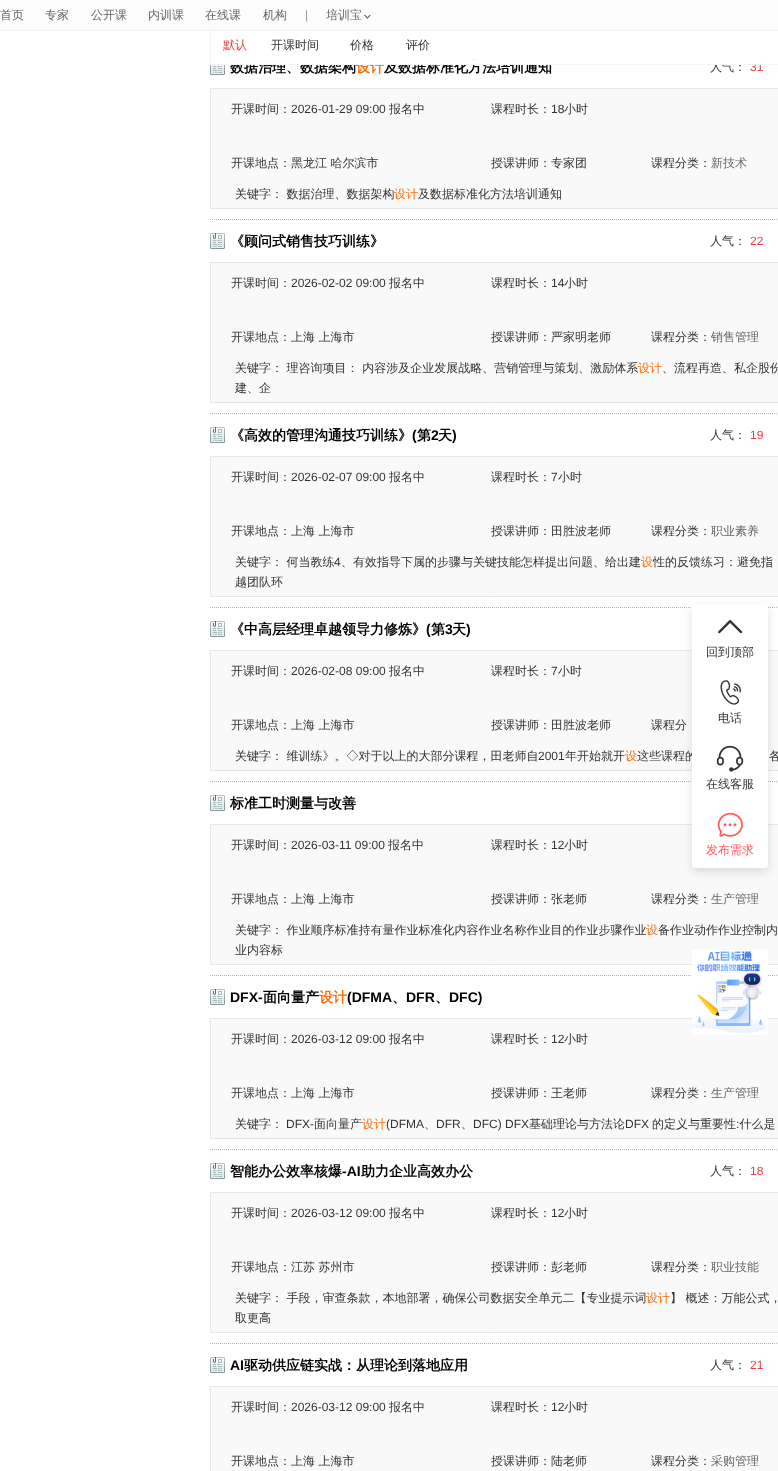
<!DOCTYPE html>
<meta charset="utf-8">
<style>body { margin: 0 } canvas { display: block }</style>
<canvas id="canvas" width="778" height="1471"></canvas>
<img id="img1" src="img_01.png" hidden>
<img id="img2" src="img_02.png" hidden>
<img id="img3" src="img_03.png" hidden>
<img id="img4" src="img_08.png" hidden>
<img id="img5" src="img_04.png" hidden>
<img id="img6" src="img_05.png" hidden>
<img id="img7" src="img_06.png" hidden>
<img id="img8" src="img_07.png" hidden>
<script>
window.onload = function () {
	const canvas = document.getElementById("canvas");
	const ctx = canvas.getContext("2d");
	ctx.miterLimit = 4;
	ctx.fontKerning = "normal";
	function txt(s, x, y) {
		ctx.fillText(s, x, y);
	}
	function fill(x, y, w, h) {
		ctx.fillRect(x, y, w, h);
	}
	function round(x, y, w, h, r) {
		ctx.beginPath();
		ctx.roundRect(x, y, w, h, r);
		ctx.fill();
	}
	function img(id, x, y, w, h) {
		ctx.drawImage(document.getElementById(id), x, y, w, h);
	}

	ctx.fillStyle = "#FFFFFF";
	fill(0, 0, 778, 1471);
	ctx.fillStyle = "#FCFCFC";
	fill(0, 0, 778, 30);
	img("img1", 364, 15, 7, 4);
	ctx.beginPath();
	ctx.moveTo(210, 219.5);
	ctx.lineTo(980, 219.5);
	ctx.strokeStyle = "#B7B7B7";
	ctx.setLineDash([1, 1]);
	ctx.stroke();
	img("img2", 210, 65, 15, 10);
	ctx.fillStyle = "#F9F9F9";
	ctx.beginPath();
	ctx.rect(210.5, 88.5, 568, 120);
	ctx.fill();
	ctx.strokeStyle = "#E6E6E6";
	ctx.setLineDash([]);
	ctx.stroke();
	ctx.beginPath();
	ctx.moveTo(210, 413.5);
	ctx.lineTo(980, 413.5);
	ctx.strokeStyle = "#B7B7B7";
	ctx.setLineDash([1, 1]);
	ctx.stroke();
	img("img3", 210, 233, 15, 16);
	ctx.beginPath();
	ctx.rect(210.5, 262.5, 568, 140);
	ctx.fill();
	ctx.strokeStyle = "#E6E6E6";
	ctx.setLineDash([]);
	ctx.stroke();
	ctx.beginPath();
	ctx.moveTo(210, 607.5);
	ctx.lineTo(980, 607.5);
	ctx.strokeStyle = "#B7B7B7";
	ctx.setLineDash([1, 1]);
	ctx.stroke();
	img("img3", 210, 427, 15, 16);
	ctx.beginPath();
	ctx.rect(210.5, 456.5, 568, 140);
	ctx.fill();
	ctx.strokeStyle = "#E6E6E6";
	ctx.setLineDash([]);
	ctx.stroke();
	ctx.beginPath();
	ctx.moveTo(210, 781.5);
	ctx.lineTo(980, 781.5);
	ctx.strokeStyle = "#B7B7B7";
	ctx.setLineDash([1, 1]);
	ctx.stroke();
	img("img3", 210, 621, 15, 16);
	ctx.beginPath();
	ctx.rect(210.5, 650.5, 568, 120);
	ctx.fill();
	ctx.strokeStyle = "#E6E6E6";
	ctx.setLineDash([]);
	ctx.stroke();
	ctx.beginPath();
	ctx.moveTo(210, 975.5);
	ctx.lineTo(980, 975.5);
	ctx.strokeStyle = "#B7B7B7";
	ctx.setLineDash([1, 1]);
	ctx.stroke();
	img("img3", 210, 795, 15, 16);
	ctx.beginPath();
	ctx.rect(210.5, 824.5, 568, 140);
	ctx.fill();
	ctx.strokeStyle = "#E6E6E6";
	ctx.setLineDash([]);
	ctx.stroke();
	ctx.beginPath();
	ctx.moveTo(210, 1149.5);
	ctx.lineTo(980, 1149.5);
	ctx.strokeStyle = "#B7B7B7";
	ctx.setLineDash([1, 1]);
	ctx.stroke();
	img("img3", 210, 989, 15, 16);
	ctx.beginPath();
	ctx.rect(210.5, 1018.5, 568, 120);
	ctx.fill();
	ctx.strokeStyle = "#E6E6E6";
	ctx.setLineDash([]);
	ctx.stroke();
	ctx.beginPath();
	ctx.moveTo(210, 1343.5);
	ctx.lineTo(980, 1343.5);
	ctx.strokeStyle = "#B7B7B7";
	ctx.setLineDash([1, 1]);
	ctx.stroke();
	img("img3", 210, 1163, 15, 16);
	ctx.beginPath();
	ctx.rect(210.5, 1192.5, 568, 140);
	ctx.fill();
	ctx.strokeStyle = "#E6E6E6";
	ctx.setLineDash([]);
	ctx.stroke();
	img("img3", 210, 1357, 15, 16);
	ctx.beginPath();
	ctx.rect(210.5, 1386.5, 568, 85);
	ctx.fill();
	ctx.stroke();
	ctx.fillStyle = "rgba(0, 0, 0, 0.12)";
	ctx.filter = "blur(5px)";
	ctx.beginPath();
	ctx.roundRect(692, 608, 76, 264, 4);
	ctx.fill();
	ctx.filter = "none";
	img("img4", 692, 950, 76, 85);
	ctx.font = "500 12px WenQuanYi Zen Hei";
	ctx.fillStyle = "#666666";
	txt("首页", 0, 19);
	txt("专家", 45, 19);
	txt("公开课", 91, 19);
	txt("内训课", 148, 19);
	txt("在线课", 205, 19);
	txt("机构", 263, 19);
	ctx.font = "12px Liberation Sans";
	ctx.fillStyle = "#979797";
	txt("|", 305, 19);
	ctx.font = "500 12px WenQuanYi Zen Hei";
	ctx.fillStyle = "#666666";
	txt("培训宝", 326, 19);
	ctx.font = "bold 14px WenQuanYi Zen Hei";
	ctx.fillStyle = "#000000";
	txt("数据治理、数据架构", 230, 72);
	ctx.fillStyle = "#FF6A00";
	txt("设计", 356, 72);
	ctx.fillStyle = "#000000";
	txt("及数据标准化方法培训通知", 384, 72);
	ctx.font = "500 12px WenQuanYi Zen Hei";
	ctx.fillStyle = "#333333";
	txt("人气：", 710, 71);
	ctx.font = "12px Liberation Sans";
	ctx.fillStyle = "#E54046";
	txt("31", 750, 71);
	ctx.fillStyle = "#FFFFFF";
	fill(230, 60, 531, 4);
	ctx.strokeStyle = "#F5F5F5";
	ctx.strokeRect(210.5, 30.5, 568, 34);
	ctx.fillStyle = "#EFEFEF";
	fill(0, 30, 778, 1);
	ctx.font = "500 12px WenQuanYi Zen Hei";
	ctx.fillStyle = "#333333";
	txt("评价", 406, 49);
	txt("价格", 350, 49);
	txt("开课时间", 271, 49);
	ctx.fillStyle = "#E54046";
	txt("默认", 223, 49);
	ctx.fillStyle = "#333333";
	txt("开课时间：", 231, 113);
	ctx.font = "12px Liberation Sans";
	txt("2026-01-29 09:00", 291, 113);
	ctx.font = "500 12px WenQuanYi Zen Hei";
	txt("报名中", 389, 113);
	txt("课程时长：", 491, 113);
	ctx.font = "12px Liberation Sans";
	txt("18", 551, 113);
	ctx.font = "500 12px WenQuanYi Zen Hei";
	txt("小时", 564, 113);
	txt("开课地点：黑龙江 哈尔滨市", 231, 167);
	txt("授课讲师：专家团", 491, 167);
	txt("课程分类：", 651, 167);
	ctx.fillStyle = "#666666";
	txt("新技术", 711, 167);
	ctx.fillStyle = "#333333";
	txt("关键字： 数据治理、数据架构", 235, 198);
	ctx.fillStyle = "#FF6A00";
	txt("设计", 394, 198);
	ctx.fillStyle = "#333333";
	txt("及数据标准化方法培训通知", 418, 198);
	ctx.font = "bold 14px WenQuanYi Zen Hei";
	ctx.fillStyle = "#000000";
	txt("《顾问式销售技巧训练》", 230, 246);
	ctx.font = "500 12px WenQuanYi Zen Hei";
	ctx.fillStyle = "#333333";
	txt("人气：", 710, 245);
	ctx.font = "12px Liberation Sans";
	ctx.fillStyle = "#E54046";
	txt("22", 750, 245);
	ctx.font = "500 12px WenQuanYi Zen Hei";
	ctx.fillStyle = "#333333";
	txt("开课时间：", 231, 287);
	ctx.font = "12px Liberation Sans";
	txt("2026-02-02 09:00", 291, 287);
	ctx.font = "500 12px WenQuanYi Zen Hei";
	txt("报名中", 389, 287);
	txt("课程时长：", 491, 287);
	ctx.font = "12px Liberation Sans";
	txt("14", 551, 287);
	ctx.font = "500 12px WenQuanYi Zen Hei";
	txt("小时", 564, 287);
	txt("开课地点：上海 上海市", 231, 341);
	txt("授课讲师：严家明老师", 491, 341);
	txt("课程分类：", 651, 341);
	ctx.fillStyle = "#666666";
	txt("销售管理", 711, 341);
	ctx.fillStyle = "#333333";
	txt("关键字： 理咨询项目： 内容涉及企业发展战略、营销管理与策划、激励体系", 235, 372);
	ctx.fillStyle = "#FF6A00";
	txt("设计", 638, 372);
	ctx.fillStyle = "#333333";
	txt("、流程再造、私企股份", 662, 372);
	txt("建、企", 235, 392);
	ctx.font = "bold 14px WenQuanYi Zen Hei";
	ctx.fillStyle = "#000000";
	txt("《高效的管理沟通技巧训练》", 230, 440);
	ctx.font = "bold 14px Liberation Sans";
	txt("(", 412, 440);
	ctx.font = "bold 14px WenQuanYi Zen Hei";
	txt("第", 417, 440);
	ctx.font = "bold 14px Liberation Sans";
	txt("2", 431, 440);
	ctx.font = "bold 14px WenQuanYi Zen Hei";
	txt("天", 438, 440);
	ctx.font = "bold 14px Liberation Sans";
	txt(")", 452, 440);
	ctx.font = "500 12px WenQuanYi Zen Hei";
	ctx.fillStyle = "#333333";
	txt("人气：", 710, 439);
	ctx.font = "12px Liberation Sans";
	ctx.fillStyle = "#E54046";
	txt("19", 750, 439);
	ctx.font = "500 12px WenQuanYi Zen Hei";
	ctx.fillStyle = "#333333";
	txt("开课时间：", 231, 481);
	ctx.font = "12px Liberation Sans";
	txt("2026-02-07 09:00", 291, 481);
	ctx.font = "500 12px WenQuanYi Zen Hei";
	txt("报名中", 389, 481);
	txt("课程时长：", 491, 481);
	ctx.font = "12px Liberation Sans";
	txt("7", 551, 481);
	ctx.font = "500 12px WenQuanYi Zen Hei";
	txt("小时", 558, 481);
	txt("开课地点：上海 上海市", 231, 535);
	txt("授课讲师：田胜波老师", 491, 535);
	txt("课程分类：", 651, 535);
	ctx.fillStyle = "#666666";
	txt("职业素养", 711, 535);
	ctx.fillStyle = "#333333";
	txt("关键字： 何当教练", 235, 566);
	ctx.font = "12px Liberation Sans";
	txt("4", 334, 566);
	ctx.font = "500 12px WenQuanYi Zen Hei";
	txt("、有效指导下属的步骤与关键技能怎样提出问题、给出建", 341, 566);
	ctx.fillStyle = "#FF6A00";
	txt("设", 641, 566);
	ctx.fillStyle = "#333333";
	txt("性的反馈练习：避免指", 653, 566);
	txt("越团队环", 235, 586);
	ctx.font = "bold 14px WenQuanYi Zen Hei";
	ctx.fillStyle = "#000000";
	txt("《中高层经理卓越领导力修炼》", 230, 634);
	ctx.font = "bold 14px Liberation Sans";
	txt("(", 426, 634);
	ctx.font = "bold 14px WenQuanYi Zen Hei";
	txt("第", 431, 634);
	ctx.font = "bold 14px Liberation Sans";
	txt("3", 445, 634);
	ctx.font = "bold 14px WenQuanYi Zen Hei";
	txt("天", 452, 634);
	ctx.font = "bold 14px Liberation Sans";
	txt(")", 466, 634);
	ctx.font = "500 12px WenQuanYi Zen Hei";
	ctx.fillStyle = "#333333";
	txt("开课时间：", 231, 675);
	ctx.font = "12px Liberation Sans";
	txt("2026-02-08 09:00", 291, 675);
	ctx.font = "500 12px WenQuanYi Zen Hei";
	txt("报名中", 389, 675);
	txt("课程时长：", 491, 675);
	ctx.font = "12px Liberation Sans";
	txt("7", 551, 675);
	ctx.font = "500 12px WenQuanYi Zen Hei";
	txt("小时", 558, 675);
	txt("开课地点：上海 上海市", 231, 729);
	txt("授课讲师：田胜波老师", 491, 729);
	txt("课程分", 651, 729);
	txt("关键字： 维训练》。◇对于以上的大部分课程，田老师自", 235, 760);
	ctx.font = "12px Liberation Sans";
	txt("2001", 538, 760);
	ctx.font = "500 12px WenQuanYi Zen Hei";
	txt("年开始就开", 565, 760);
	ctx.fillStyle = "#FF6A00";
	txt("设", 625, 760);
	ctx.fillStyle = "#333333";
	txt("这些课程的", 637, 760);
	txt("各", 769, 760);
	ctx.font = "bold 14px WenQuanYi Zen Hei";
	ctx.fillStyle = "#000000";
	txt("标准工时测量与改善", 230, 808);
	ctx.font = "500 12px WenQuanYi Zen Hei";
	ctx.fillStyle = "#333333";
	txt("开课时间：", 231, 849);
	ctx.font = "12px Liberation Sans";
	txt("2026-03-11 09:00", 291, 849);
	ctx.font = "500 12px WenQuanYi Zen Hei";
	txt("报名中", 388, 849);
	txt("课程时长：", 491, 849);
	ctx.font = "12px Liberation Sans";
	txt("12", 551, 849);
	ctx.font = "500 12px WenQuanYi Zen Hei";
	txt("小时", 564, 849);
	txt("开课地点：上海 上海市", 231, 903);
	txt("授课讲师：张老师", 491, 903);
	txt("课程分类：", 651, 903);
	ctx.fillStyle = "#666666";
	txt("生产管理", 711, 903);
	ctx.fillStyle = "#333333";
	txt("关键字： 作业顺序标准持有量作业标准化内容作业名称作业目的作业步骤作业", 235, 934);
	ctx.fillStyle = "#FF6A00";
	txt("设", 646, 934);
	ctx.fillStyle = "#333333";
	txt("备作业动作作业控制内", 658, 934);
	txt("业内容标", 235, 954);
	ctx.font = "bold 14px Liberation Sans";
	ctx.fillStyle = "#000000";
	txt("DFX-", 230, 1002);
	ctx.font = "bold 14px WenQuanYi Zen Hei";
	txt("面向量产", 263, 1002);
	ctx.fillStyle = "#FF6A00";
	txt("设计", 319, 1002);
	ctx.font = "bold 14px Liberation Sans";
	ctx.fillStyle = "#000000";
	txt("(DFMA", 347, 1002);
	ctx.font = "bold 14px WenQuanYi Zen Hei";
	txt("、", 392, 1002);
	ctx.font = "bold 14px Liberation Sans";
	txt("DFR", 406, 1002);
	ctx.font = "bold 14px WenQuanYi Zen Hei";
	txt("、", 435, 1002);
	ctx.font = "bold 14px Liberation Sans";
	txt("DFC)", 449, 1002);
	ctx.font = "500 12px WenQuanYi Zen Hei";
	ctx.fillStyle = "#333333";
	txt("开课时间：", 231, 1043);
	ctx.font = "12px Liberation Sans";
	txt("2026-03-12 09:00", 291, 1043);
	ctx.font = "500 12px WenQuanYi Zen Hei";
	txt("报名中", 389, 1043);
	txt("课程时长：", 491, 1043);
	ctx.font = "12px Liberation Sans";
	txt("12", 551, 1043);
	ctx.font = "500 12px WenQuanYi Zen Hei";
	txt("小时", 564, 1043);
	txt("开课地点：上海 上海市", 231, 1097);
	txt("授课讲师：王老师", 491, 1097);
	txt("课程分类：", 651, 1097);
	ctx.fillStyle = "#666666";
	txt("生产管理", 711, 1097);
	ctx.fillStyle = "#333333";
	txt("关键字：", 235, 1128);
	ctx.font = "12px Liberation Sans";
	txt("DFX-", 286, 1128);
	ctx.font = "500 12px WenQuanYi Zen Hei";
	txt("面向量产", 314, 1128);
	ctx.fillStyle = "#FF6A00";
	txt("设计", 362, 1128);
	ctx.font = "12px Liberation Sans";
	ctx.fillStyle = "#333333";
	txt("(DFMA", 386, 1128);
	txt("DFR", 436, 1128);
	txt("DFC) DFX", 473, 1128);
	ctx.font = "500 12px WenQuanYi Zen Hei";
	txt("基础理论与方法论", 529, 1128);
	ctx.font = "12px Liberation Sans";
	txt("DFX", 625, 1128);
	ctx.font = "500 12px WenQuanYi Zen Hei";
	txt("的定义与重要性 什么是", 652, 1128);
	ctx.font = "12px Liberation Sans";
	txt(":", 736, 1128);
	ctx.font = "500 12px WenQuanYi Zen Hei";
	txt("、", 424, 1128);
	txt("、", 461, 1128);
	ctx.font = "bold 14px WenQuanYi Zen Hei";
	ctx.fillStyle = "#000000";
	txt("智能办公效率核爆", 230, 1176);
	ctx.font = "bold 14px Liberation Sans";
	txt("-AI", 342, 1176);
	ctx.font = "bold 14px WenQuanYi Zen Hei";
	txt("助力企业高效办公", 361, 1176);
	ctx.font = "500 12px WenQuanYi Zen Hei";
	ctx.fillStyle = "#333333";
	txt("人气：", 710, 1175);
	ctx.font = "12px Liberation Sans";
	ctx.fillStyle = "#E54046";
	txt("18", 750, 1175);
	ctx.font = "500 12px WenQuanYi Zen Hei";
	ctx.fillStyle = "#333333";
	txt("开课时间：", 231, 1217);
	ctx.font = "12px Liberation Sans";
	txt("2026-03-12 09:00", 291, 1217);
	ctx.font = "500 12px WenQuanYi Zen Hei";
	txt("报名中", 389, 1217);
	txt("课程时长：", 491, 1217);
	ctx.font = "12px Liberation Sans";
	txt("12", 551, 1217);
	ctx.font = "500 12px WenQuanYi Zen Hei";
	txt("小时", 564, 1217);
	txt("开课地点：江苏 苏州市", 231, 1271);
	txt("授课讲师：彭老师", 491, 1271);
	txt("课程分类：", 651, 1271);
	ctx.fillStyle = "#666666";
	txt("职业技能", 711, 1271);
	ctx.fillStyle = "#333333";
	txt("关键字： 手段，审查条款，本地部署，确保公司数据安全单元二【专业提示词", 235, 1302);
	ctx.fillStyle = "#FF6A00";
	txt("设计", 646, 1302);
	ctx.fillStyle = "#333333";
	txt("】 概述：万能公式，", 670, 1302);
	txt("取更高", 235, 1322);
	ctx.font = "bold 14px Liberation Sans";
	ctx.fillStyle = "#000000";
	txt("AI", 230, 1370);
	ctx.font = "bold 14px WenQuanYi Zen Hei";
	txt("驱动供应链实战：从理论到落地应用", 244, 1370);
	ctx.font = "500 12px WenQuanYi Zen Hei";
	ctx.fillStyle = "#333333";
	txt("人气：", 710, 1369);
	ctx.font = "12px Liberation Sans";
	ctx.fillStyle = "#E54046";
	txt("21", 750, 1369);
	ctx.font = "500 12px WenQuanYi Zen Hei";
	ctx.fillStyle = "#333333";
	txt("开课时间：", 231, 1411);
	ctx.font = "12px Liberation Sans";
	txt("2026-03-12 09:00", 291, 1411);
	ctx.font = "500 12px WenQuanYi Zen Hei";
	txt("报名中", 389, 1411);
	txt("课程时长：", 491, 1411);
	ctx.font = "12px Liberation Sans";
	txt("12", 551, 1411);
	ctx.font = "500 12px WenQuanYi Zen Hei";
	txt("小时", 564, 1411);
	txt("开课地点：上海 上海市", 231, 1465);
	txt("授课讲师：陆老师", 491, 1465);
	txt("课程分类：", 651, 1465);
	ctx.fillStyle = "#666666";
	txt("采购管理", 711, 1465);
	ctx.fillStyle = "#FFFFFF";
	round(692, 604, 76, 264, 4);
	img("img5", 718, 620, 25, 14);
	ctx.fillStyle = "#333333";
	txt("回到顶部", 706, 656);
	img("img6", 720, 680, 21, 25);
	txt("电话", 718, 722);
	img("img7", 716, 745, 28, 27);
	txt("在线客服", 706, 788);
	img("img8", 717, 812, 26, 25);
	ctx.fillStyle = "#FF5B5B";
	txt("发布需求", 706, 854);
};
</script>
